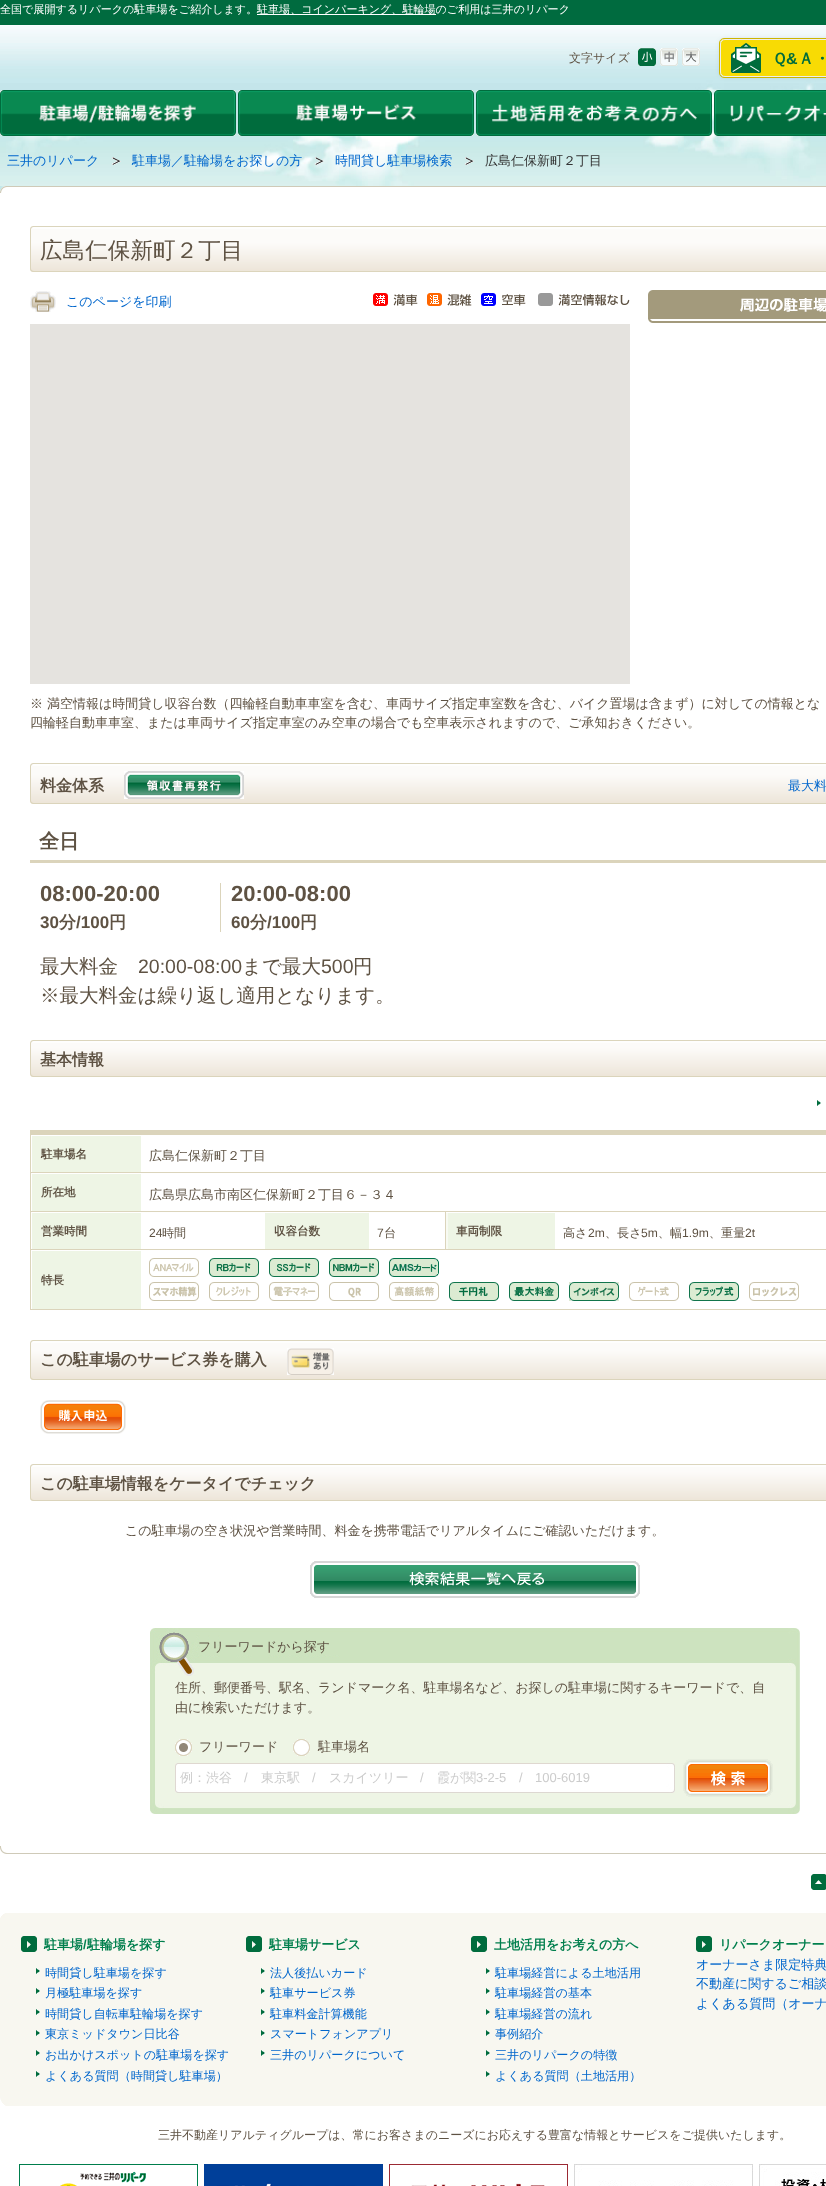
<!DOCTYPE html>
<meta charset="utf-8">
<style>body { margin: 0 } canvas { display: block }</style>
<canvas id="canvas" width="826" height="2186"></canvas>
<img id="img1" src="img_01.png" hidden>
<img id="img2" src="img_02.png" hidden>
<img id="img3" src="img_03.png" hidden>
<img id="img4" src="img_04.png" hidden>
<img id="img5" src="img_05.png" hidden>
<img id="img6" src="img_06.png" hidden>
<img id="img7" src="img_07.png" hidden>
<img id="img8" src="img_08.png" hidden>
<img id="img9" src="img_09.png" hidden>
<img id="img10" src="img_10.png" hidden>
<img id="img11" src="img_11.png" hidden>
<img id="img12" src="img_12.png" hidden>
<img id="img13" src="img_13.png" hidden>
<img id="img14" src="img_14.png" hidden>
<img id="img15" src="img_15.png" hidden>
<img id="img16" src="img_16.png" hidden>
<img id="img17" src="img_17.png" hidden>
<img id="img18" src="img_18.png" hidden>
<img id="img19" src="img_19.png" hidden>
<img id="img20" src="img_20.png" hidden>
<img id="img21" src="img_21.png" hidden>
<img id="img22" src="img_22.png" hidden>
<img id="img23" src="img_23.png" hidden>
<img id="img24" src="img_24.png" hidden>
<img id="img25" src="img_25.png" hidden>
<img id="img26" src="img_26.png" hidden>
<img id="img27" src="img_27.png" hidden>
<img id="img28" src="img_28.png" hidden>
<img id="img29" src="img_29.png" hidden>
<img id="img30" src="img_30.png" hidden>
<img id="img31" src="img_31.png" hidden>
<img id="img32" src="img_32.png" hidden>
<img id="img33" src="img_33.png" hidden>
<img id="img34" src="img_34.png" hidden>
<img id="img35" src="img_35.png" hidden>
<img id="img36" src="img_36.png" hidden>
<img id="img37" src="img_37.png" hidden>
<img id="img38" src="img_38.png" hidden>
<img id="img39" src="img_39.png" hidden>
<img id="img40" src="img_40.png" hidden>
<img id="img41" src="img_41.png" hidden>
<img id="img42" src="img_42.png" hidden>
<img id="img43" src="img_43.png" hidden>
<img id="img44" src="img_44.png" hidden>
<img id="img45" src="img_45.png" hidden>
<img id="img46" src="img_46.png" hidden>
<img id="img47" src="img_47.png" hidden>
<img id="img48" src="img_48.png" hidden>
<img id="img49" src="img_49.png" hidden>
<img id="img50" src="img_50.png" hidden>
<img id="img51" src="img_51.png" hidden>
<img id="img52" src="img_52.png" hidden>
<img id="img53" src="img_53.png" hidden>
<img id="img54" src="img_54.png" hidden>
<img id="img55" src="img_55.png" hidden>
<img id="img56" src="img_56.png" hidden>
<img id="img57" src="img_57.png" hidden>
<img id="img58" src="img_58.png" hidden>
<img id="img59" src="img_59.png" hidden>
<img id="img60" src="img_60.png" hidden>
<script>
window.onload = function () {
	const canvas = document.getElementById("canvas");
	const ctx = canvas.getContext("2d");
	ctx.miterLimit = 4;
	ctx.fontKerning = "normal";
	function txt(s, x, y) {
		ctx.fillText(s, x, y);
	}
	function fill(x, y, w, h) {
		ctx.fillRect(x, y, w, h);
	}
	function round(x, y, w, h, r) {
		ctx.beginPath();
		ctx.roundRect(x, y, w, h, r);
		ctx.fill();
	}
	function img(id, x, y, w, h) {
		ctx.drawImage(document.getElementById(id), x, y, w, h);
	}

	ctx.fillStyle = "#FFFFFF";
	fill(0, 0, 826, 2186);
	img("img1", 0, 25, 826, 161);
	ctx.fillStyle = "#006B3F";
	fill(0, 0, 826, 25);
	ctx.fillStyle = "#FFFFFF";
	fill(257, 14, 179, 1);
	img("img2", 638, 48, 18, 18);
	img("img3", 660, 48, 18, 18);
	img("img4", 682, 48, 18, 18);
	ctx.beginPath();
	ctx.roundRect(719.5, 38.5, 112, 39, 4.5);
	ctx.strokeStyle = "#D7BD00";
	ctx.stroke();
	ctx.fillStyle = "rgba(0, 0, 0, 0.1)";
	ctx.filter = "blur(2.5px)";
	ctx.beginPath();
	ctx.roundRect(720, 39, 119, 38, 5);
	ctx.fill();
	ctx.filter = "none";
	ctx.fillStyle = "#F8DB04";
	round(720, 39, 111, 38, 5);
	img("img5", 731, 43, 30, 30);
	ctx.beginPath();
	ctx.roundRect(720.5, 39.5, 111, 37, 4.5);
	ctx.strokeStyle = "#EEEEEE";
	ctx.stroke();
	img("img6", 0, 90, 236, 46);
	img("img7", 238, 90, 236, 46);
	img("img8", 476, 90, 236, 46);
	img("img9", 714, 90, 112, 46);
	img("img10", 112, 157, 9, 8);
	img("img11", 315, 157, 9, 8);
	img("img10", 465, 157, 9, 8);
	img("img12", 0, 1846, 826, 8);
	img("img13", 0, 186, 826, 7);
	img("img14", 30, 229, 796, 43);
	img("img15", 30, 226, 796, 3);
	img("img16", 30, 291, 26, 21);
	img("img17", 373, 293, 257, 13);
	ctx.fillStyle = "#E5E3DF";
	fill(30, 324, 600, 360);
	img("img18", 648, 290, 178, 29);
	img("img19", 648, 319, 178, 4);
	img("img20", 30, 766, 796, 38);
	img("img15", 30, 763, 796, 3);
	img("img21", 124, 771, 120, 28);
	ctx.fillStyle = "#DBD4BB";
	fill(30, 860, 796, 3);
	fill(220, 883, 1, 49);
	img("img22", 30, 1043, 796, 34);
	img("img15", 30, 1040, 796, 3);
	img("img23", 817, 1100, 4, 6);
	fill(30, 1130, 796, 4);
	fill(30, 1309, 796, 1);
	fill(30, 1130, 1, 180);
	ctx.fillStyle = "#EEF5E5";
	fill(32, 1136, 109, 36);
	ctx.fillStyle = "#DBD4BB";
	fill(31, 1134, 795, 1);
	ctx.fillStyle = "#EEF5E5";
	fill(32, 1174, 109, 37);
	ctx.fillStyle = "#DBD4BB";
	fill(31, 1172, 795, 1);
	ctx.fillStyle = "#EEF5E5";
	fill(32, 1213, 109, 36);
	fill(265, 1213, 104, 36);
	ctx.fillStyle = "#DBD4BB";
	fill(445, 1211, 381, 1);
	fill(31, 1249, 795, 1);
	fill(445, 1211, 1, 39);
	fill(31, 1211, 415, 1);
	img("img24", 446, 1213, 109, 36);
	img("img25", 149, 1258, 50, 19);
	img("img26", 209, 1258, 50, 19);
	img("img27", 269, 1258, 50, 19);
	img("img28", 329, 1258, 50, 19);
	img("img29", 389, 1258, 50, 19);
	img("img30", 149, 1282, 50, 19);
	img("img31", 209, 1282, 50, 19);
	img("img32", 269, 1282, 50, 19);
	img("img33", 329, 1282, 50, 19);
	img("img34", 389, 1282, 50, 19);
	img("img35", 449, 1282, 50, 19);
	img("img36", 509, 1282, 50, 19);
	img("img37", 569, 1282, 50, 19);
	img("img38", 629, 1282, 50, 19);
	img("img39", 689, 1282, 50, 19);
	img("img40", 749, 1282, 50, 19);
	ctx.fillStyle = "#EEF5E5";
	fill(32, 1251, 109, 58);
	img("img41", 30, 1343, 796, 37);
	img("img15", 30, 1340, 796, 3);
	img("img42", 287, 1348, 47, 27);
	img("img43", 40, 1400, 86, 34);
	img("img22", 30, 1467, 796, 34);
	img("img15", 30, 1464, 796, 3);
	img("img44", 310, 1561, 330, 37);
	img("img45", 150, 1676, 650, 138);
	img("img46", 150, 1628, 650, 48);
	img("img47", 175, 1739, 17, 17);
	img("img48", 293, 1739, 17, 17);
	img("img49", 175, 1763, 500, 30);
	img("img50", 683, 1759, 90, 38);
	img("img51", 811, 1874, 15, 16);
	img("img52", 0, 1913, 826, 193);
	img("img53", 0, 1913, 5, 5);
	img("img54", 21, 1936, 16, 16);
	img("img55", 36, 1968, 4, 6);
	img("img55", 36, 1988, 4, 6);
	img("img55", 36, 2009, 4, 6);
	img("img55", 36, 2030, 4, 6);
	img("img55", 36, 2050, 4, 6);
	img("img55", 36, 2071, 4, 6);
	img("img54", 246, 1936, 16, 16);
	img("img55", 261, 1968, 4, 6);
	img("img55", 261, 1988, 4, 6);
	img("img55", 261, 2009, 4, 6);
	img("img55", 261, 2030, 4, 6);
	img("img55", 261, 2050, 4, 6);
	img("img54", 471, 1936, 16, 16);
	img("img55", 486, 1968, 4, 6);
	img("img55", 486, 1988, 4, 6);
	img("img55", 486, 2009, 4, 6);
	img("img55", 486, 2030, 4, 6);
	img("img55", 486, 2050, 4, 6);
	img("img55", 486, 2071, 4, 6);
	img("img54", 696, 1936, 16, 16);
	img("img56", 19, 2164, 179, 22);
	img("img57", 204, 2164, 179, 22);
	img("img58", 389, 2164, 179, 22);
	img("img59", 574, 2164, 179, 22);
	img("img60", 759, 2164, 67, 22);
	ctx.font = "500 11.05px WenQuanYi Zen Hei";
	ctx.fillStyle = "#FFFFFF";
	txt("全国で展開するリパークの駐車場をご紹介します。", 0, 13);
	txt("駐車場、コインパーキング、駐輪場のご利用は三井のリパーク", 257, 13);
	ctx.font = "500 12px WenQuanYi Zen Hei";
	ctx.fillStyle = "#5E5243";
	txt("文字サイズ", 569, 62);
	ctx.font = "bold 16px WenQuanYi Zen Hei";
	ctx.fillStyle = "#006C3C";
	txt("Ｑ", 772, 64);
	ctx.font = "bold 16px Liberation Sans";
	txt("&", 786, 64);
	ctx.font = "bold 16px WenQuanYi Zen Hei";
	txt("Ａ・", 798, 64);
	ctx.font = "500 13px WenQuanYi Zen Hei";
	ctx.fillStyle = "#0066CC";
	txt("三井のリパーク", 7, 165);
	txt("駐車場／駐輪場をお探しの方", 132, 165);
	txt("時間貸し駐車場検索", 335, 165);
	ctx.fillStyle = "#333333";
	txt("広島仁保新町２丁目", 485, 165);
	ctx.font = "500 22.6px WenQuanYi Zen Hei";
	ctx.fillStyle = "#5E5243";
	txt("広島仁保新町２丁目", 40, 258);
	ctx.font = "500 13px WenQuanYi Zen Hei";
	ctx.fillStyle = "#0066CC";
	txt("このページを印刷", 66, 306);
	ctx.fillStyle = "#5E5243";
	txt("※ 満空情報は時間貸し収容台数（四輪軽自動車車室を含む、車両サイズ指定車室数を含む、バイク置場は含まず）に対しての情報とな", 30, 708);
	txt("四輪軽自動車車室、または車両サイズ指定車室のみ空車の場合でも空車表示されますので、ご承知おきください。", 30, 727);
	ctx.font = "bold 16px WenQuanYi Zen Hei";
	txt("料金体系", 40, 791);
	ctx.font = "500 13px WenQuanYi Zen Hei";
	ctx.fillStyle = "#0066CC";
	txt("最大料", 788, 790);
	ctx.font = "bold 20px WenQuanYi Zen Hei";
	ctx.fillStyle = "#5E5243";
	txt("全日", 39, 848);
	ctx.font = "bold 22px Liberation Sans";
	txt("08:00-20:00", 40, 901);
	ctx.font = "bold 17px Liberation Sans";
	txt("30", 40, 928);
	ctx.font = "bold 17px WenQuanYi Zen Hei";
	txt("分", 59, 928);
	ctx.font = "bold 17px Liberation Sans";
	txt("/100", 76, 928);
	ctx.font = "bold 17px WenQuanYi Zen Hei";
	txt("円", 109, 928);
	ctx.font = "bold 22px Liberation Sans";
	txt("20:00-08:00", 231, 901);
	ctx.font = "bold 17px Liberation Sans";
	txt("60", 231, 928);
	ctx.font = "bold 17px WenQuanYi Zen Hei";
	txt("分", 250, 928);
	ctx.font = "bold 17px Liberation Sans";
	txt("/100", 267, 928);
	ctx.font = "bold 17px WenQuanYi Zen Hei";
	txt("円", 300, 928);
	ctx.font = "500 19.5px WenQuanYi Zen Hei";
	txt("最大料金", 40, 973);
	ctx.font = "19.5px Liberation Sans";
	txt("20:00-08:00", 138, 973);
	ctx.font = "500 19.5px WenQuanYi Zen Hei";
	txt("まで最大", 242, 973);
	ctx.font = "19.5px Liberation Sans";
	txt("500", 321, 973);
	ctx.font = "500 19.5px WenQuanYi Zen Hei";
	txt("円", 353, 973);
	txt("※最大料金は繰り返し適用となります。", 40, 1002);
	ctx.font = "bold 16px WenQuanYi Zen Hei";
	txt("基本情報", 40, 1065);
	ctx.font = "bold 11.5px WenQuanYi Zen Hei";
	txt("駐車場名", 41, 1158);
	ctx.font = "500 13px WenQuanYi Zen Hei";
	txt("広島仁保新町２丁目", 149, 1160);
	ctx.font = "bold 11.5px WenQuanYi Zen Hei";
	txt("所在地", 41, 1196);
	ctx.font = "500 13px WenQuanYi Zen Hei";
	txt("広島県広島市南区仁保新町２丁目６－３４", 149, 1199);
	ctx.font = "bold 11.5px WenQuanYi Zen Hei";
	txt("営業時間", 41, 1235);
	ctx.font = "12.1px Liberation Sans";
	txt("24", 149, 1237);
	ctx.font = "500 12.1px WenQuanYi Zen Hei";
	txt("時間", 162, 1237);
	ctx.font = "bold 11.5px WenQuanYi Zen Hei";
	txt("収容台数", 274, 1235);
	ctx.font = "12.1px Liberation Sans";
	txt("7", 377, 1237);
	ctx.font = "500 12.1px WenQuanYi Zen Hei";
	txt("台", 384, 1237);
	ctx.font = "bold 11.5px WenQuanYi Zen Hei";
	txt("車両制限", 456, 1235);
	ctx.font = "500 12.1px WenQuanYi Zen Hei";
	txt("高さ", 563, 1237);
	ctx.font = "12.1px Liberation Sans";
	txt("2m", 588, 1237);
	ctx.font = "500 12.1px WenQuanYi Zen Hei";
	txt("、長さ", 605, 1237);
	ctx.font = "12.1px Liberation Sans";
	txt("5m", 641, 1237);
	ctx.font = "500 12.1px WenQuanYi Zen Hei";
	txt("、幅", 658, 1237);
	ctx.font = "12.1px Liberation Sans";
	txt("1.9m", 682, 1237);
	ctx.font = "500 12.1px WenQuanYi Zen Hei";
	txt("、重量", 709, 1237);
	ctx.font = "12.1px Liberation Sans";
	txt("2t", 745, 1237);
	ctx.font = "bold 11.5px WenQuanYi Zen Hei";
	txt("特長", 41, 1284);
	ctx.font = "bold 16px WenQuanYi Zen Hei";
	txt("この駐車場のサービス券を購入", 40, 1365);
	txt("この駐車場情報をケータイでチェック", 40, 1489);
	ctx.font = "500 13px WenQuanYi Zen Hei";
	txt("この駐車場の空き状況や営業時間、料金を携帯電話でリアルタイムにご確認いただけます。", 125, 1535);
	txt("フリーワードから探す", 198, 1651);
	txt("住所、郵便番号、駅名、ランドマーク名、駐車場名など、お探しの駐車場に関するキーワードで、自", 175, 1692);
	txt("由に検索いただけます。", 175, 1712);
	txt("フリーワード", 199, 1751);
	txt("駐車場名", 318, 1751);
	ctx.fillStyle = "#CCCCCC";
	txt("例：渋谷", 180, 1782);
	ctx.font = "13px Liberation Sans";
	txt("/", 244, 1782);
	ctx.font = "500 13px WenQuanYi Zen Hei";
	txt("東京駅", 261, 1782);
	ctx.font = "13px Liberation Sans";
	txt("/", 312, 1782);
	ctx.font = "500 13px WenQuanYi Zen Hei";
	txt("スカイツリー", 329, 1782);
	ctx.font = "13px Liberation Sans";
	txt("/", 420, 1782);
	ctx.font = "500 13px WenQuanYi Zen Hei";
	txt("霞が関", 437, 1782);
	ctx.font = "13px Liberation Sans";
	txt("3-2-5", 476, 1782);
	txt("/", 519, 1782);
	txt("100-6019", 535, 1782);
	ctx.font = "bold 13px WenQuanYi Zen Hei";
	ctx.fillStyle = "#007F4D";
	txt("駐車場", 44, 1949);
	ctx.font = "bold 13px Liberation Sans";
	txt("/", 83, 1949);
	ctx.font = "bold 13px WenQuanYi Zen Hei";
	txt("駐輪場を探す", 87, 1949);
	ctx.font = "500 12.1px WenQuanYi Zen Hei";
	ctx.fillStyle = "#0066CC";
	txt("時間貸し駐車場を探す", 45, 1977);
	txt("月極駐車場を探す", 45, 1997);
	txt("時間貸し自転車駐輪場を探す", 45, 2018);
	txt("東京ミッドタウン日比谷", 45, 2038);
	txt("お出かけスポットの駐車場を探す", 45, 2059);
	txt("よくある質問（時間貸し駐車場）", 45, 2080);
	ctx.font = "bold 13px WenQuanYi Zen Hei";
	ctx.fillStyle = "#007F4D";
	txt("駐車場サービス", 269, 1949);
	ctx.font = "500 12.1px WenQuanYi Zen Hei";
	ctx.fillStyle = "#0066CC";
	txt("法人後払いカード", 270, 1977);
	txt("駐車サービス券", 270, 1997);
	txt("駐車料金計算機能", 270, 2018);
	txt("スマートフォンアプリ", 270, 2038);
	txt("三井のリパークについて", 270, 2059);
	ctx.font = "bold 13px WenQuanYi Zen Hei";
	ctx.fillStyle = "#007F4D";
	txt("土地活用をお考えの方へ", 494, 1949);
	ctx.font = "500 12.1px WenQuanYi Zen Hei";
	ctx.fillStyle = "#0066CC";
	txt("駐車場経営による土地活用", 495, 1977);
	txt("駐車場経営の基本", 495, 1997);
	txt("駐車場経営の流れ", 495, 2018);
	txt("事例紹介", 495, 2038);
	txt("三井のリパークの特徴", 495, 2059);
	txt("よくある質問（土地活用）", 495, 2080);
	ctx.font = "bold 13px WenQuanYi Zen Hei";
	ctx.fillStyle = "#007F4D";
	txt("リパークオーナー", 719, 1949);
	ctx.font = "500 13px WenQuanYi Zen Hei";
	ctx.fillStyle = "#0066CC";
	txt("オーナーさま限定特典", 696, 1969);
	txt("不動産に関するご相談", 696, 1988);
	txt("よくある質問（オーナ", 696, 2008);
	ctx.font = "500 12px WenQuanYi Zen Hei";
	ctx.fillStyle = "#5E5243";
	txt("三井不動産リアルティグループは、常にお客さまのニーズにお応えする豊富な情報とサービスをご提供いたします。", 158, 2139);
};
</script>
